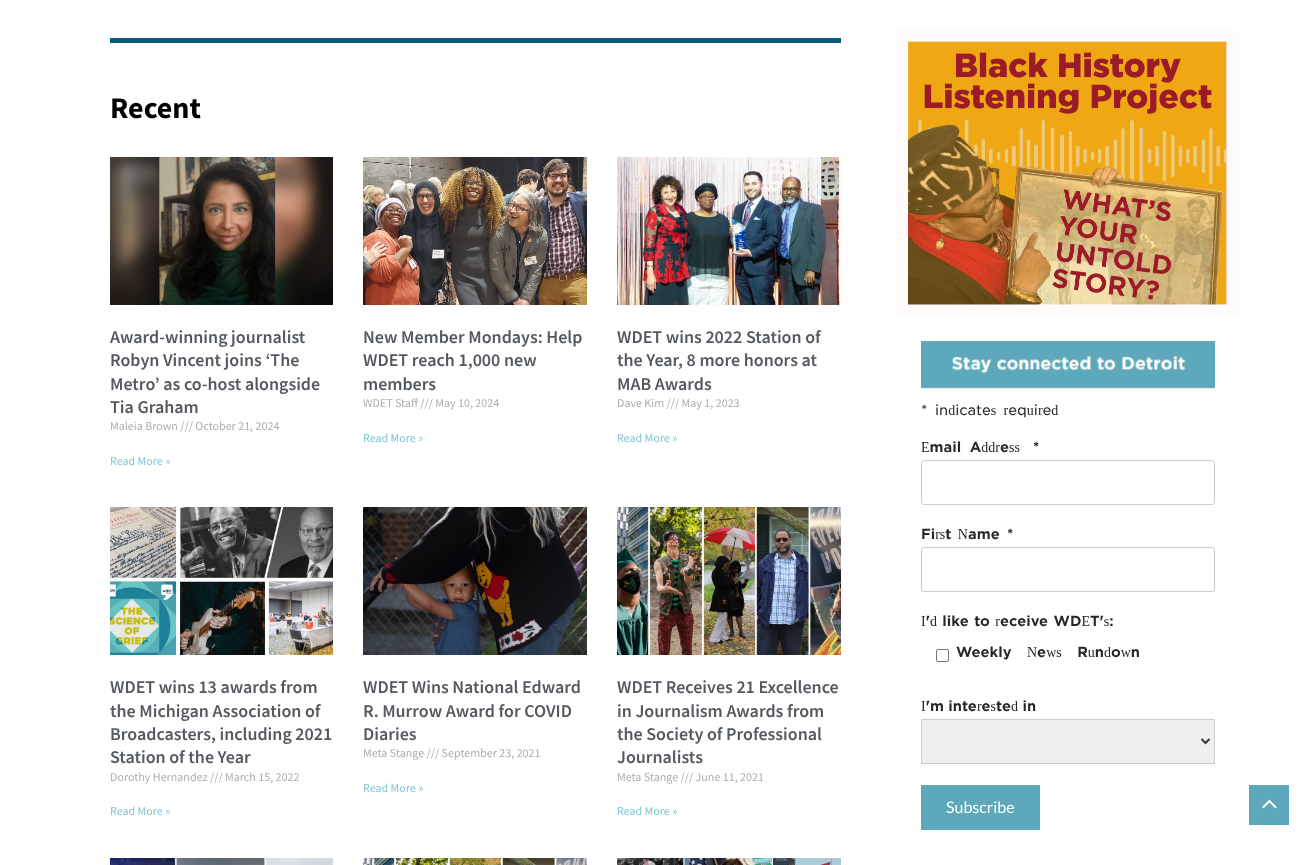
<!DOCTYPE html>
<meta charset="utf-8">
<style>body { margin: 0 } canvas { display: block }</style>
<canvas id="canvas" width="1309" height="865"></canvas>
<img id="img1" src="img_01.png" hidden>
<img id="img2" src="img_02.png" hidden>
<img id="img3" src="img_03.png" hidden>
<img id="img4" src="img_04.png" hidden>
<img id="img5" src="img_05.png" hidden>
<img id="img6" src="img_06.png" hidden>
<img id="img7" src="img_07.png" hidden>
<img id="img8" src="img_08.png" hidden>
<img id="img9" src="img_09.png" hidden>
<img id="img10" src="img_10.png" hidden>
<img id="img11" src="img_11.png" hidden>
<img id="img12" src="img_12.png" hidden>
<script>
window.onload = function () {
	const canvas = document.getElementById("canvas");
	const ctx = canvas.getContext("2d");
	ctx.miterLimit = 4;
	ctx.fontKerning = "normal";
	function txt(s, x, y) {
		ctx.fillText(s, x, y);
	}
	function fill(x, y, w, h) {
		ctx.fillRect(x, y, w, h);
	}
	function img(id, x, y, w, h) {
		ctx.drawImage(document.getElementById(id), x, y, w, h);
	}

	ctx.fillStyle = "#FFFFFF";
	fill(0, 0, 1309, 865);
	ctx.fillStyle = "#0C5C78";
	fill(110, 38, 731, 5);
	img("img1", 110, 157, 223, 148);
	img("img2", 363, 157, 224, 148);
	img("img3", 617, 157, 224, 148);
	img("img4", 110, 507, 223, 148);
	img("img5", 363, 507, 224, 148);
	img("img6", 617, 507, 224, 148);
	img("img7", 110, 858, 223, 7);
	img("img8", 363, 858, 224, 7);
	img("img9", 617, 858, 224, 7);
	img("img10", 896, 30, 343, 286);
	img("img11", 921, 341, 294, 48);
	ctx.beginPath();
	ctx.roundRect(921.5, 460.5, 293, 44, 2.5);
	ctx.strokeStyle = "#CCCCCC";
	ctx.stroke();
	ctx.beginPath();
	ctx.roundRect(921.5, 547.5, 293, 44, 2.5);
	ctx.stroke();
	ctx.beginPath();
	ctx.roundRect(936.5, 649.5, 12, 12, 1.5);
	ctx.strokeStyle = "#767676";
	ctx.stroke();
	ctx.fillStyle = "#EFEFEF";
	ctx.beginPath();
	ctx.rect(921.5, 719.5, 293, 44);
	ctx.fill();
	ctx.strokeStyle = "#CCCCCC";
	ctx.stroke();
	ctx.beginPath();
	ctx.moveTo(1201.5, 739);
	ctx.lineTo(1205.5, 743);
	ctx.lineTo(1209.5, 739);
	ctx.strokeStyle = "#3A3A3A";
	ctx.lineWidth = 2;
	ctx.stroke();
	ctx.fillStyle = "#5DA8BA";
	fill(921, 785, 119, 45);
	fill(1249, 785, 40, 40);
	img("img12", 1262, 799, 15, 10);
	ctx.font = "bold 30px Source Sans Pro";
	ctx.fillStyle = "#000000";
	txt("Recent", 110, 118);
	ctx.font = "600 18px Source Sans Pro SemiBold";
	ctx.fillStyle = "#54595F";
	txt("Award-winning journalist", 110, 343);
	txt("Robyn Vincent joins ‘The", 110, 366);
	txt("Metro’ as co-host alongside", 110, 390);
	txt("Tia Graham", 110, 413);
	ctx.font = "12px Source Sans Pro";
	ctx.fillStyle = "#ADADAD";
	txt("Maleia Brown /// October 21, 2024", 110, 430);
	ctx.fillStyle = "#80C5D6";
	txt("Read More »", 110, 465);
	ctx.font = "600 18px Source Sans Pro SemiBold";
	ctx.fillStyle = "#54595F";
	txt("New Member Mondays: Help", 363, 343);
	txt("WDET reach 1,000 new", 363, 366);
	txt("members", 363, 390);
	ctx.font = "12px Source Sans Pro";
	ctx.fillStyle = "#ADADAD";
	txt("WDET Staff /// May 10, 2024", 363, 407);
	ctx.fillStyle = "#80C5D6";
	txt("Read More »", 363, 442);
	ctx.font = "600 18px Source Sans Pro SemiBold";
	ctx.fillStyle = "#54595F";
	txt("WDET wins 2022 Station of", 617, 343);
	txt("the Year, 8 more honors at", 617, 366);
	txt("MAB Awards", 617, 390);
	ctx.font = "12px Source Sans Pro";
	ctx.fillStyle = "#ADADAD";
	txt("Dave Kim /// May 1, 2023", 617, 407);
	ctx.fillStyle = "#80C5D6";
	txt("Read More »", 617, 442);
	ctx.font = "600 18px Source Sans Pro SemiBold";
	ctx.fillStyle = "#54595F";
	txt("WDET wins 13 awards from", 110, 693);
	txt("the Michigan Association of", 110, 717);
	txt("Broadcasters, including 2021", 110, 740);
	txt("Station of the Year", 110, 763);
	ctx.font = "12px Source Sans Pro";
	ctx.fillStyle = "#ADADAD";
	txt("Dorothy Hernandez /// March 15, 2022", 110, 781);
	ctx.fillStyle = "#80C5D6";
	txt("Read More »", 110, 815);
	ctx.font = "600 18px Source Sans Pro SemiBold";
	ctx.fillStyle = "#54595F";
	txt("WDET Wins National Edward", 363, 693);
	txt("R. Murrow Award for COVID", 363, 717);
	txt("Diaries", 363, 740);
	ctx.font = "12px Source Sans Pro";
	ctx.fillStyle = "#ADADAD";
	txt("Meta Stange /// September 23, 2021", 363, 757);
	ctx.fillStyle = "#80C5D6";
	txt("Read More »", 363, 792);
	ctx.font = "600 18px Source Sans Pro SemiBold";
	ctx.fillStyle = "#54595F";
	txt("WDET Receives 21 Excellence", 617, 693);
	txt("in Journalism Awards from", 617, 717);
	txt("the Society of Professional", 617, 740);
	txt("Journalists", 617, 763);
	ctx.font = "12px Source Sans Pro";
	ctx.fillStyle = "#ADADAD";
	txt("Meta Stange /// June 11, 2021", 617, 781);
	ctx.fillStyle = "#80C5D6";
	txt("Read More »", 617, 815);
	ctx.font = "300 14px 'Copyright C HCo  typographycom'";
	ctx.fillStyle = "#272727";
	txt("*", 921, 415);
	ctx.wordSpacing = "3px";
	txt("indicates required", 935, 415);
	ctx.wordSpacing = "4px";
	ctx.font = "14px 'Copyright C HCo  typographycom'";
	txt("Email Address", 921, 452);
	ctx.wordSpacing = "0px";
	txt("*", 1033, 452);
	ctx.wordSpacing = "2px";
	txt("First Name", 921, 539);
	ctx.wordSpacing = "0px";
	txt("*", 1007, 539);
	ctx.wordSpacing = "1px";
	txt("I'd like to receive WDET's:", 921, 626);
	ctx.wordSpacing = "11px";
	txt("Weekly News Rundown", 956, 657);
	ctx.wordSpacing = "0px";
	txt("I'm interested in", 921, 711);
	ctx.font = "16px Lato";
	ctx.fillStyle = "#FFFFFF";
	txt("Subscribe", 946, 813);
};
</script>
